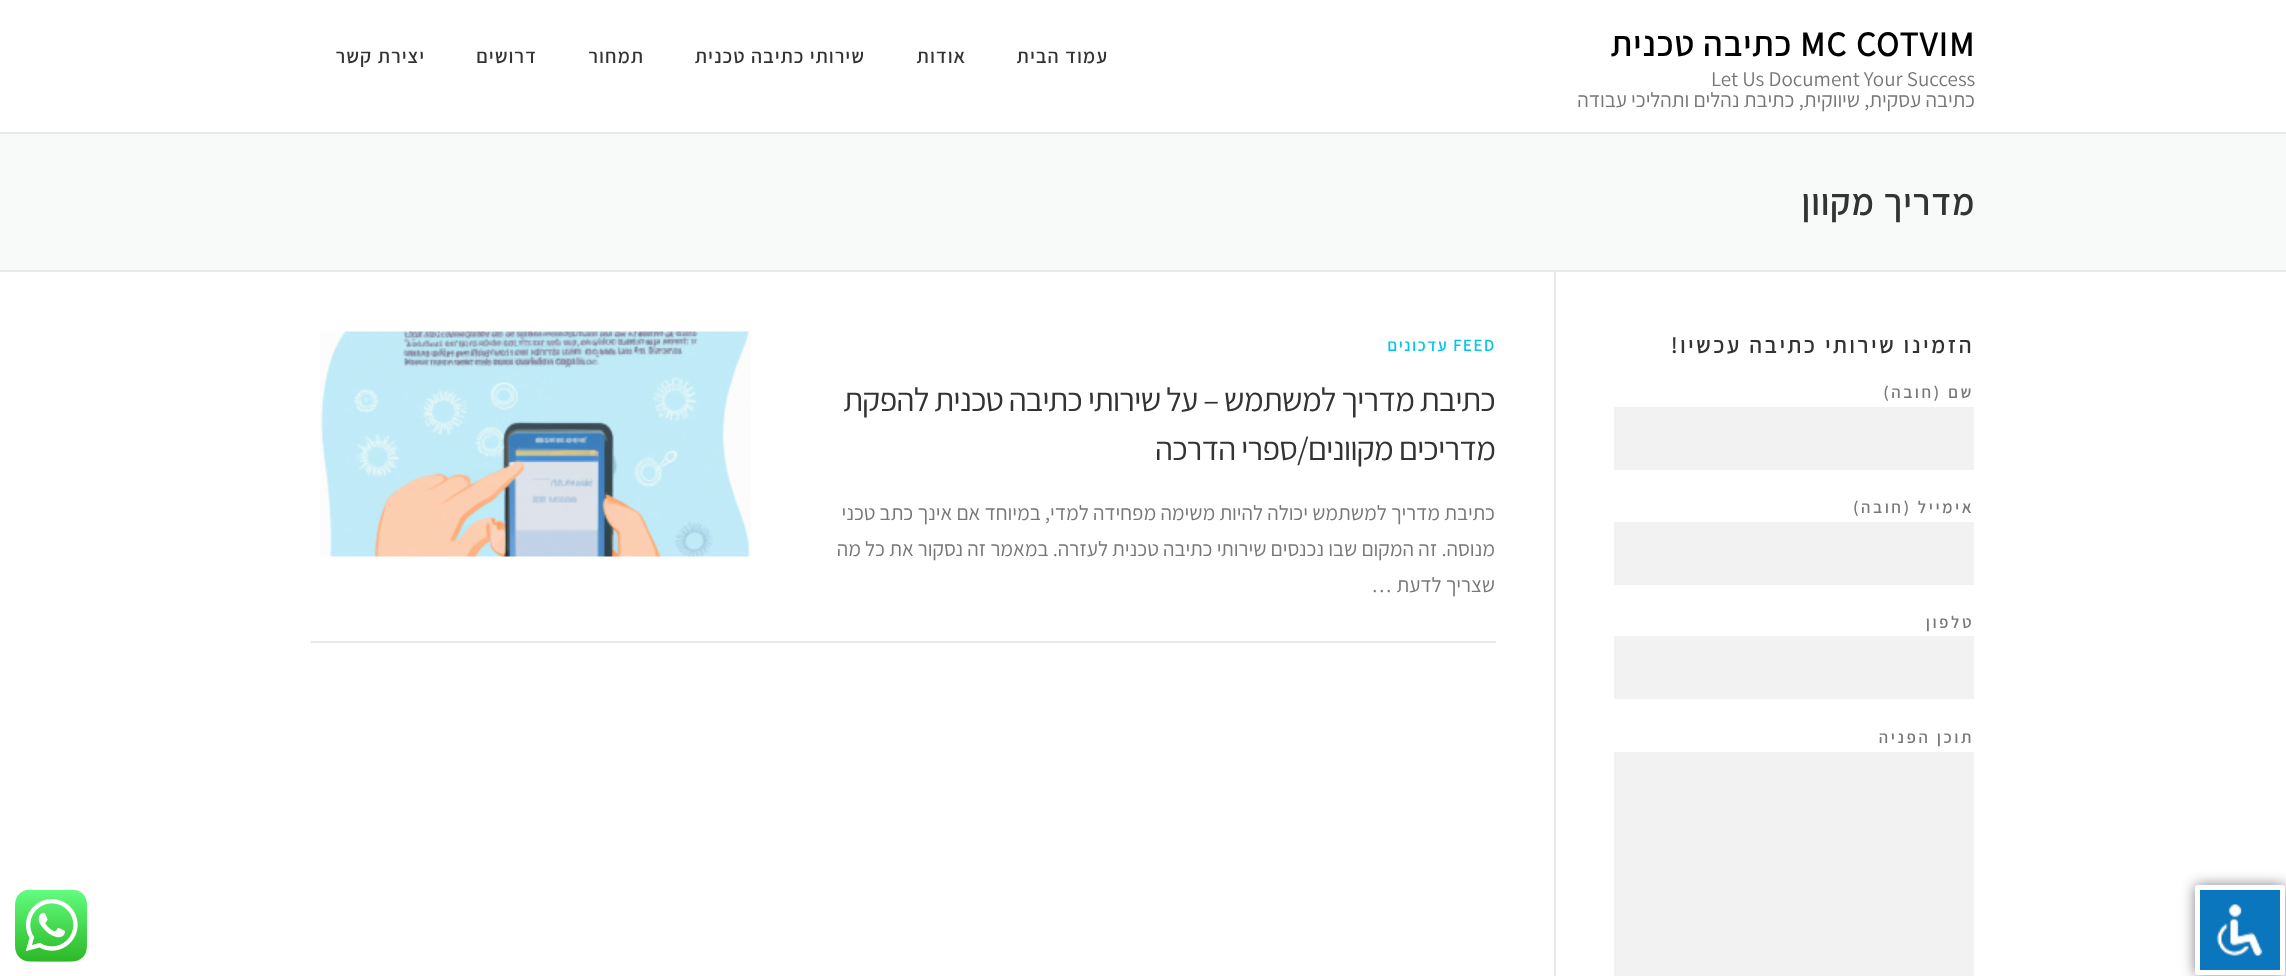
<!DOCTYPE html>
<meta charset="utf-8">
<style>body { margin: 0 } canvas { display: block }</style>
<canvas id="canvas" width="2286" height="976"></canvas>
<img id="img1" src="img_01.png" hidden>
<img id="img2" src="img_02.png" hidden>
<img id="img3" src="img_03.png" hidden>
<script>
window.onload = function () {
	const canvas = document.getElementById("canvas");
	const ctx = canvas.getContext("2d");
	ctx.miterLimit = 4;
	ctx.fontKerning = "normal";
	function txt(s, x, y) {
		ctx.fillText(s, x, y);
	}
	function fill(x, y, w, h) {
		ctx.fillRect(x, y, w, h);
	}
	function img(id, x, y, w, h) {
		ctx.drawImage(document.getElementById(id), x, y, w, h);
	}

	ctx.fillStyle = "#FFFFFF";
	fill(0, 0, 2286, 976);
	ctx.fillStyle = "#F8F9F9";
	fill(0, 134, 2286, 136);
	ctx.fillStyle = "#E9E9E9";
	fill(0, 132, 2286, 2);
	fill(0, 270, 2286, 2);
	fill(1554, 272, 2, 704);
	ctx.fillStyle = "#F2F2F2";
	fill(1614, 407, 360, 63);
	fill(1614, 522, 360, 63);
	fill(1614, 636, 360, 63);
	fill(1614, 752, 360, 224);
	ctx.fillStyle = "#E9E9E9";
	fill(311, 641, 1185, 2);
	img("img1", 320, 331, 431, 226);
	img("img2", 15, 890, 72, 72);
	ctx.fillStyle = "rgba(0, 0, 0, 0.5)";
	ctx.filter = "blur(7px)";
	ctx.beginPath();
	ctx.roundRect(2195, 885, 90, 90, 3);
	ctx.fill();
	ctx.filter = "none";
	ctx.fillStyle = "#0A76BE";
	ctx.beginPath();
	ctx.roundRect(2197.5, 887.5, 85, 85, 0.5);
	ctx.fill();
	ctx.strokeStyle = "#FFFFFF";
	ctx.lineWidth = 5;
	ctx.stroke();
	img("img3", 2216, 904, 47, 52);
	ctx.letterSpacing = "1.5px";
	ctx.font = "bold 34.5px Assistant";
	ctx.fillStyle = "#000000";
	txt("MC COTVIM", 1800, 56);
	ctx.direction = "rtl";
	txt("כתיבה טכנית", 1792, 56);
	ctx.letterSpacing = "0px";
	ctx.direction = "ltr";
	ctx.font = "200 21px Assistant";
	ctx.fillStyle = "#777777";
	txt("Let Us Document Your Success", 1711, 86);
	ctx.direction = "rtl";
	txt("כתיבה עסקית, שיווקית, כתיבת נהלים ותהליכי עבודה", 1975, 107);
	ctx.letterSpacing = "1.5px";
	ctx.font = "bold 19.5px Assistant";
	ctx.fillStyle = "#333333";
	txt("עמוד הבית", 1108, 63);
	txt("אודות", 966, 63);
	txt("שירותי כתיבה טכנית", 865, 63);
	txt("תמחור", 644, 63);
	txt("דרושים", 537, 63);
	txt("יצירת קשר", 425, 63);
	ctx.font = "bold 36px Assistant";
	txt("מדריך מקוון", 1975, 215);
	ctx.letterSpacing = "3px";
	ctx.font = "bold 22.5px Assistant";
	txt("הזמינו שירותי כתיבה עכשיו!", 1974, 353);
	ctx.font = "bold 16.5px Assistant";
	ctx.fillStyle = "#777777";
	txt("שם (חובה)", 1974, 398);
	txt("אימייל (חובה)", 1974, 513);
	txt("טלפון", 1974, 628);
	txt("תוכן הפניה", 1974, 743);
	ctx.letterSpacing = "1.75px";
	ctx.direction = "ltr";
	ctx.fillStyle = "#03C4EB";
	txt("FEED", 1453, 351);
	ctx.direction = "rtl";
	txt("עדכונים", 1448, 351);
	ctx.letterSpacing = "-0.9px";
	ctx.font = "200 33px Assistant";
	ctx.fillStyle = "#333333";
	txt("כתיבת מדריך למשתמש – על שירותי כתיבה טכנית להפקת", 1495, 411);
	txt("מדריכים מקוונים/ספרי הדרכה", 1495, 460);
	ctx.letterSpacing = "0px";
	ctx.font = "200 21px Assistant";
	ctx.fillStyle = "#777777";
	txt("כתיבת מדריך למשתמש יכולה להיות משימה מפחידה למדי, במיוחד אם אינך כתב טכני", 1495, 520);
	txt("מנוסה. זה המקום שבו נכנסים שירותי כתיבה טכנית לעזרה. במאמר זה נסקור את כל מה", 1495, 556);
	txt("שצריך לדעת …", 1495, 592);
};
</script>
